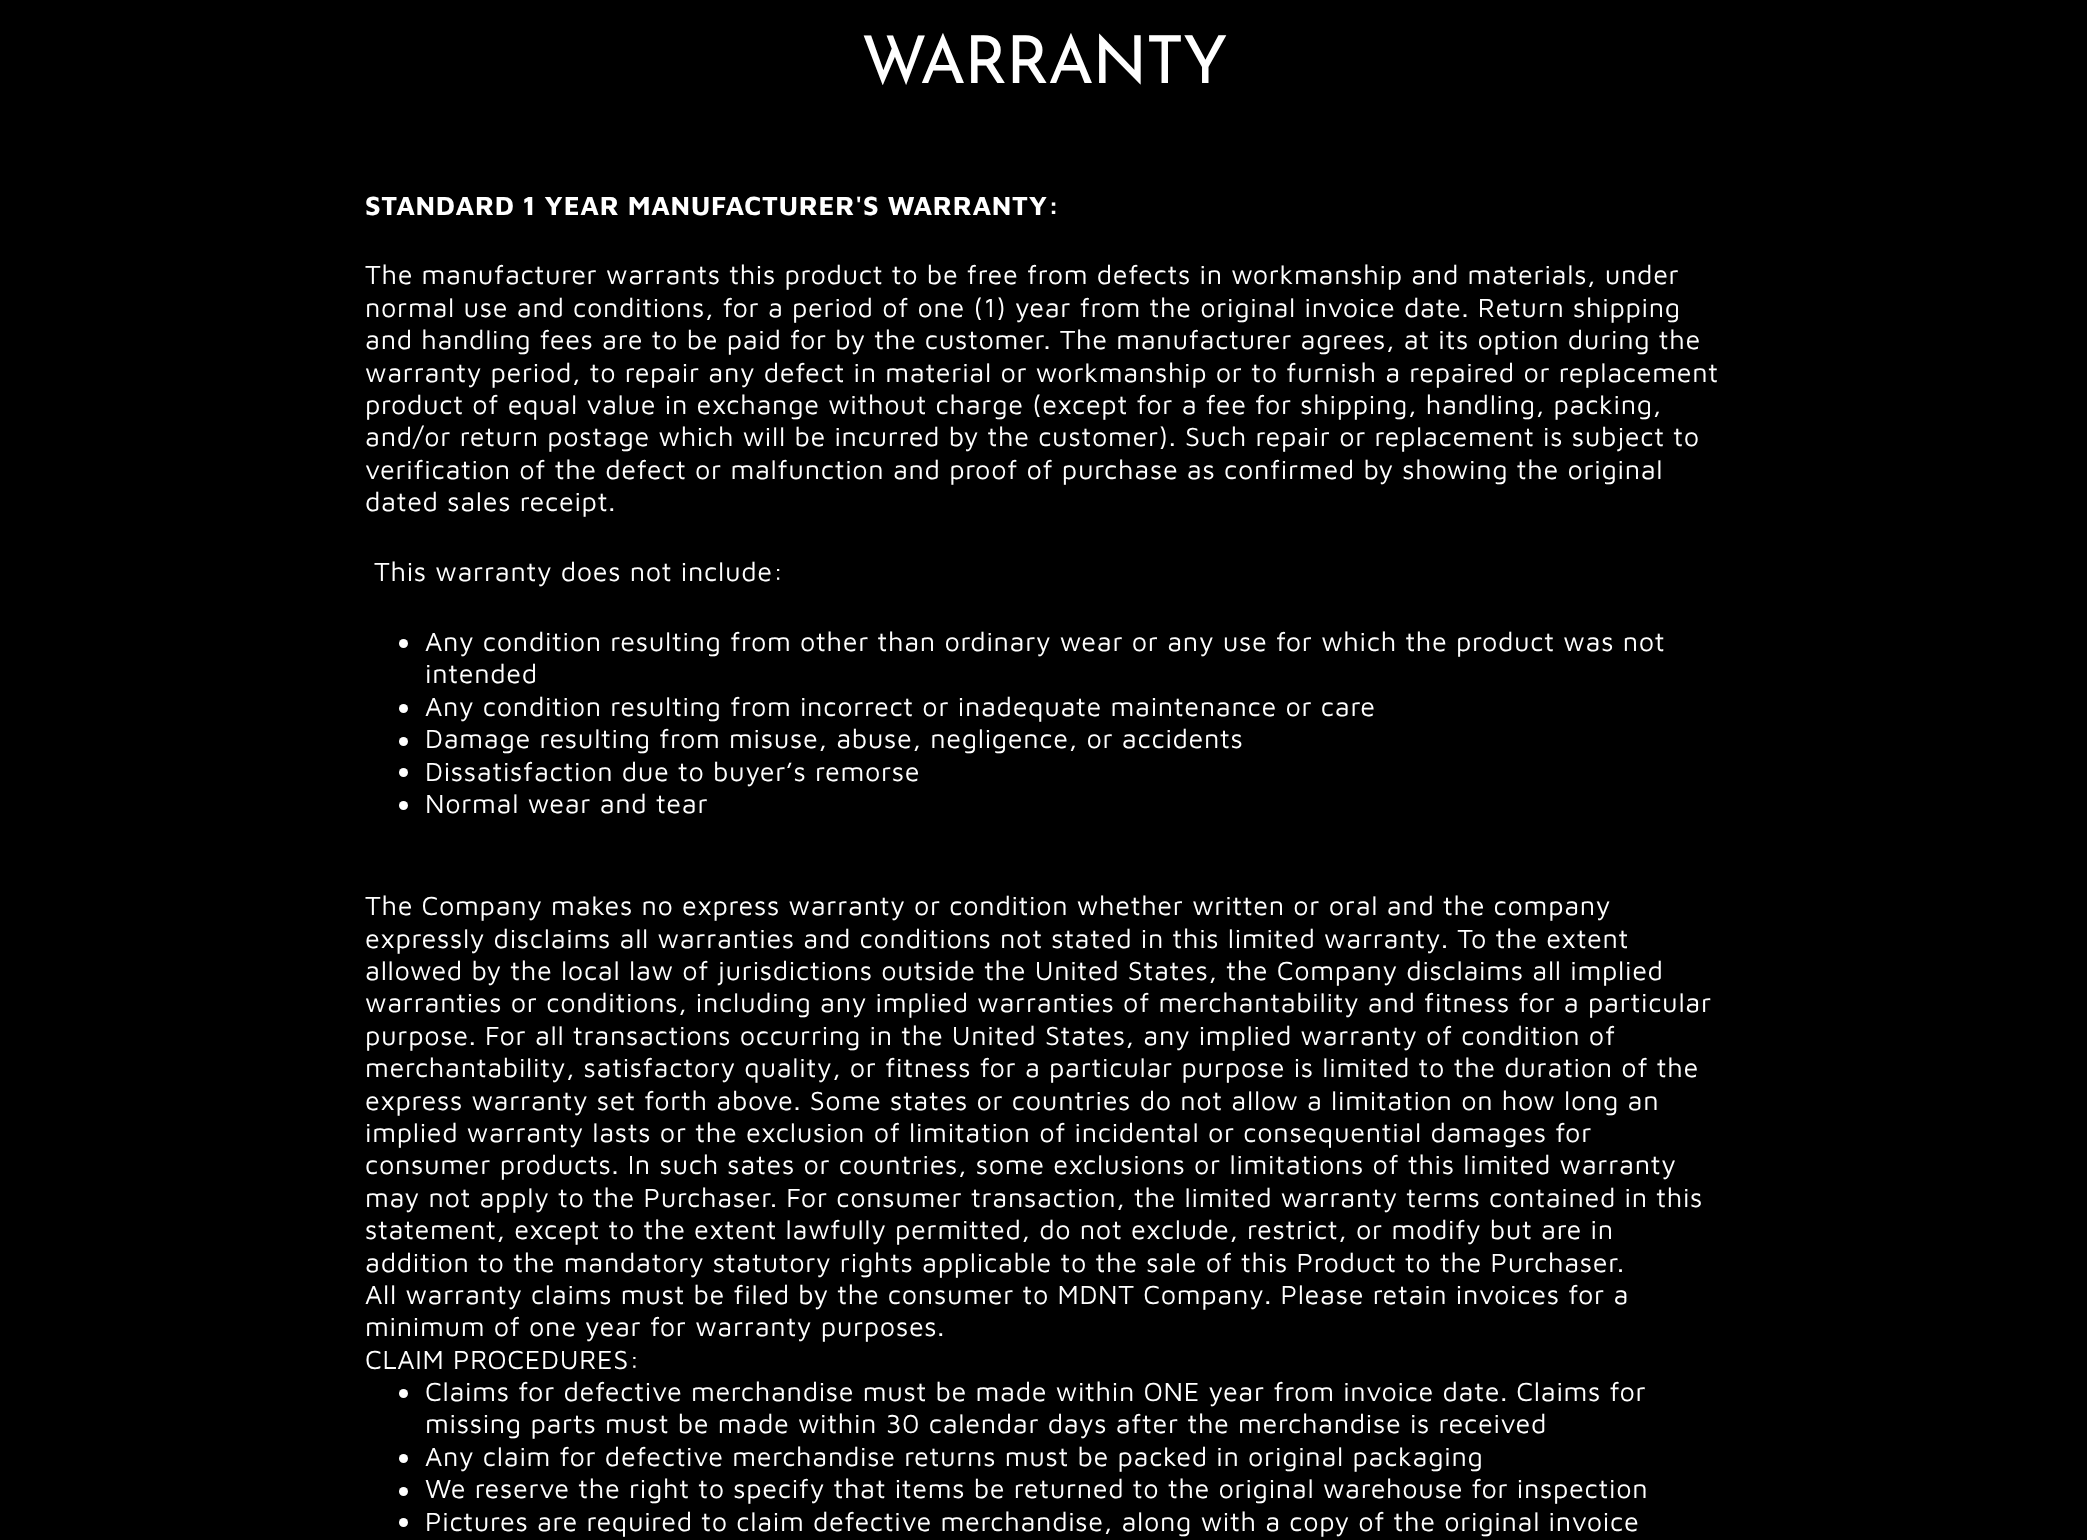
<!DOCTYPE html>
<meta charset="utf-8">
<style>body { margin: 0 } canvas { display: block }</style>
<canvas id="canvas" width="2087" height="1540"></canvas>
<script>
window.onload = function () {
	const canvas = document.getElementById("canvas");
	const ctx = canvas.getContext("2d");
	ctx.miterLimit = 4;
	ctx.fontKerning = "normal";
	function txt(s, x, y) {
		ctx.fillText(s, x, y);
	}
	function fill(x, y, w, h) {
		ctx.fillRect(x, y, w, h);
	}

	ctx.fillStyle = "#000000";
	fill(0, 0, 2087, 1540);
	ctx.fillStyle = "#FFFFFF";
	ctx.beginPath();
	ctx.arc(403.5, 643.5, 4.5, 0, Math.PI * 2);
	ctx.fill();
	ctx.beginPath();
	ctx.arc(403.5, 708.5, 4.5, 0, Math.PI * 2);
	ctx.fill();
	ctx.beginPath();
	ctx.arc(403.5, 741.5, 4.5, 0, Math.PI * 2);
	ctx.fill();
	ctx.beginPath();
	ctx.arc(403.5, 772.5, 4.5, 0, Math.PI * 2);
	ctx.fill();
	ctx.beginPath();
	ctx.arc(403.5, 805.5, 4.5, 0, Math.PI * 2);
	ctx.fill();
	ctx.beginPath();
	ctx.arc(403.5, 1393.5, 4.5, 0, Math.PI * 2);
	ctx.fill();
	ctx.beginPath();
	ctx.arc(403.5, 1458.5, 4.5, 0, Math.PI * 2);
	ctx.fill();
	ctx.beginPath();
	ctx.arc(403.5, 1491.5, 4.5, 0, Math.PI * 2);
	ctx.fill();
	ctx.beginPath();
	ctx.arc(403.5, 1522.5, 4.5, 0, Math.PI * 2);
	ctx.fill();
	ctx.letterSpacing = "-1.75px";
	ctx.font = "66px Josefin Sans";
	txt("WARRANTY", 861, 83);
	ctx.letterSpacing = "0.68px";
	ctx.font = "bold 27px Maven Pro";
	txt("STANDARD 1 YEAR MANUFACTURER'S WARRANTY:", 365, 215);
	ctx.font = "27px Maven Pro";
	txt("The manufacturer warrants this product to be free from defects in workmanship and materials, under", 365, 284);
	txt("normal use and conditions, for a period of one (1) year from the original invoice date. Return shipping", 365, 317);
	txt("and handling fees are to be paid for by the customer. The manufacturer agrees, at its option during the", 365, 349);
	txt("warranty period, to repair any defect in material or workmanship or to furnish a repaired or replacement", 365, 382);
	txt("product of equal value in exchange without charge (except for a fee for shipping, handling, packing,", 365, 414);
	txt("and/or return postage which will be incurred by the customer). Such repair or replacement is subject to", 365, 446);
	txt("verification of the defect or malfunction and proof of purchase as confirmed by showing the original", 365, 479);
	txt("dated sales receipt.", 365, 511);
	txt("This warranty does not include:", 374, 581);
	txt("Any condition resulting from other than ordinary wear or any use for which the product was not", 425, 651);
	txt("intended", 425, 683);
	txt("Any condition resulting from incorrect or inadequate maintenance or care", 425, 716);
	txt("Damage resulting from misuse, abuse, negligence, or accidents", 425, 748);
	txt("Dissatisfaction due to buyer’s remorse", 425, 781);
	txt("Normal wear and tear", 425, 813);
	txt("The Company makes no express warranty or condition whether written or oral and the company", 365, 915);
	txt("expressly disclaims all warranties and conditions not stated in this limited warranty. To the extent", 365, 948);
	txt("allowed by the local law of jurisdictions outside the United States, the Company disclaims all implied", 365, 980);
	txt("warranties or conditions, including any implied warranties of merchantability and fitness for a particular", 365, 1012);
	txt("purpose. For all transactions occurring in the United States, any implied warranty of condition of", 365, 1045);
	txt("merchantability, satisfactory quality, or fitness for a particular purpose is limited to the duration of the", 365, 1077);
	txt("express warranty set forth above. Some states or countries do not allow a limitation on how long an", 365, 1110);
	txt("implied warranty lasts or the exclusion of limitation of incidental or consequential damages for", 365, 1142);
	txt("consumer products. In such sates or countries, some exclusions or limitations of this limited warranty", 365, 1174);
	txt("may not apply to the Purchaser. For consumer transaction, the limited warranty terms contained in this", 365, 1207);
	txt("statement, except to the extent lawfully permitted, do not exclude, restrict, or modify but are in", 365, 1239);
	txt("addition to the mandatory statutory rights applicable to the sale of this Product to the Purchaser.", 365, 1272);
	txt("All warranty claims must be filed by the consumer to MDNT Company. Please retain invoices for a", 365, 1304);
	txt("minimum of one year for warranty purposes.", 365, 1336);
	txt("CLAIM PROCEDURES:", 365, 1369);
	txt("Claims for defective merchandise must be made within ONE year from invoice date. Claims for", 425, 1401);
	txt("missing parts must be made within 30 calendar days after the merchandise is received", 425, 1433);
	txt("Any claim for defective merchandise returns must be packed in original packaging", 425, 1466);
	txt("We reserve the right to specify that items be returned to the original warehouse for inspection", 425, 1498);
	txt("Pictures are required to claim defective merchandise, along with a copy of the original invoice", 425, 1531);
};
</script>
